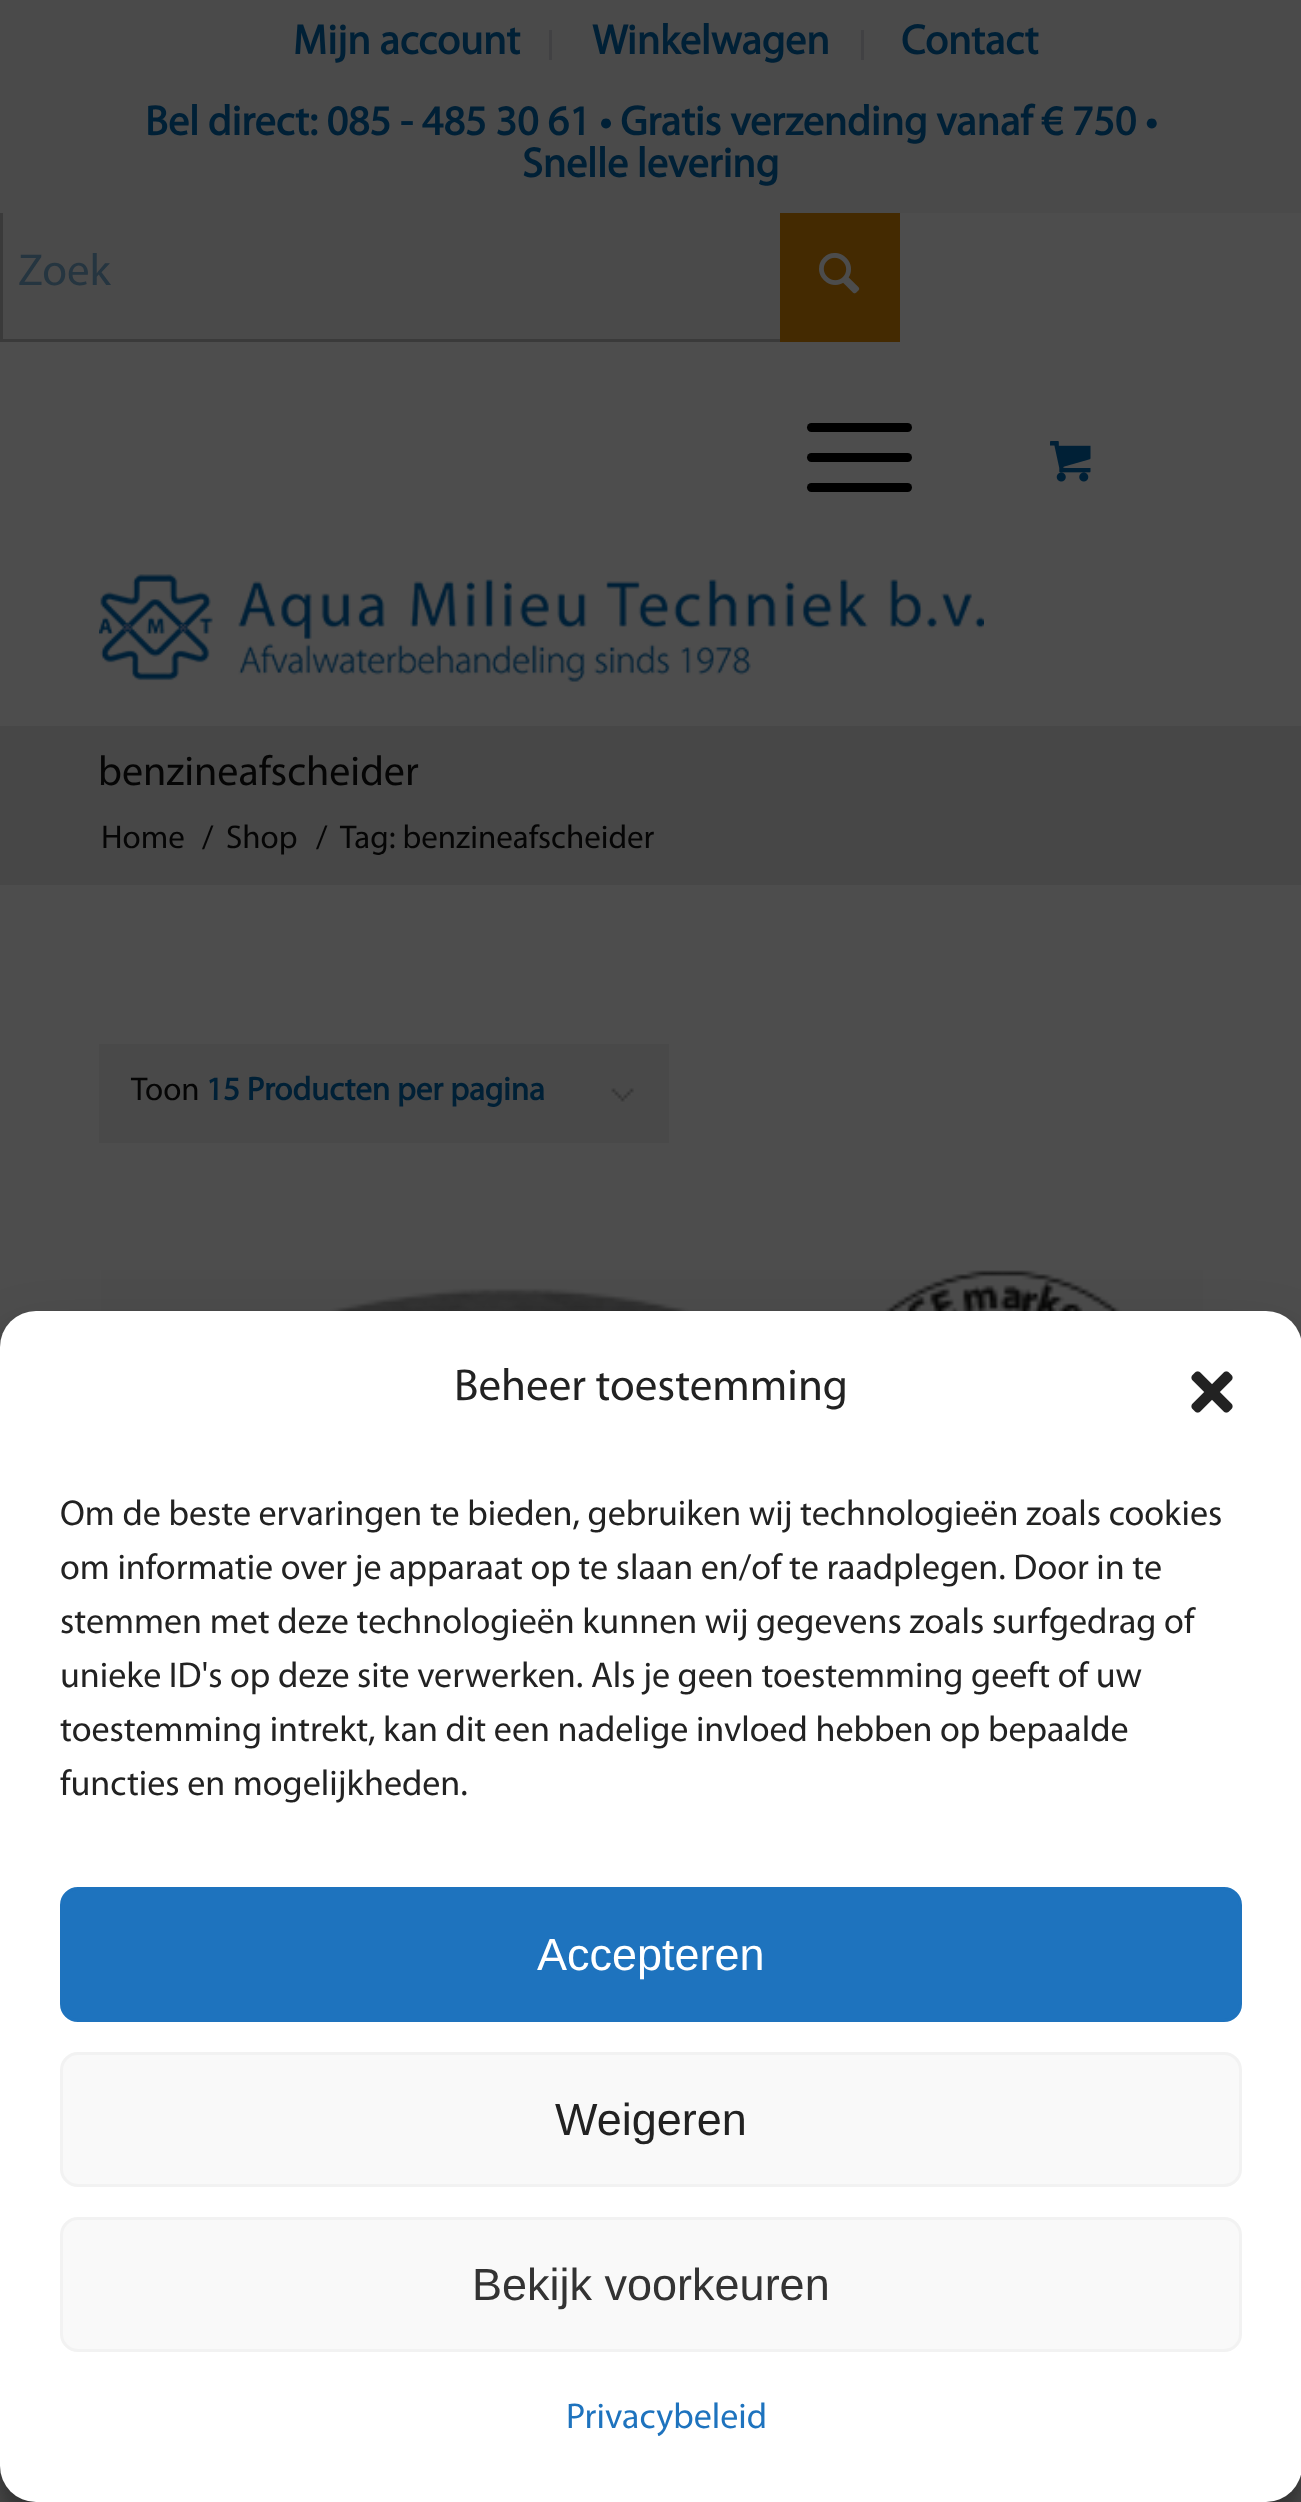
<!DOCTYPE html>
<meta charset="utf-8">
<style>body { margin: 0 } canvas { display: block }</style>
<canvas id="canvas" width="1301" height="2502"></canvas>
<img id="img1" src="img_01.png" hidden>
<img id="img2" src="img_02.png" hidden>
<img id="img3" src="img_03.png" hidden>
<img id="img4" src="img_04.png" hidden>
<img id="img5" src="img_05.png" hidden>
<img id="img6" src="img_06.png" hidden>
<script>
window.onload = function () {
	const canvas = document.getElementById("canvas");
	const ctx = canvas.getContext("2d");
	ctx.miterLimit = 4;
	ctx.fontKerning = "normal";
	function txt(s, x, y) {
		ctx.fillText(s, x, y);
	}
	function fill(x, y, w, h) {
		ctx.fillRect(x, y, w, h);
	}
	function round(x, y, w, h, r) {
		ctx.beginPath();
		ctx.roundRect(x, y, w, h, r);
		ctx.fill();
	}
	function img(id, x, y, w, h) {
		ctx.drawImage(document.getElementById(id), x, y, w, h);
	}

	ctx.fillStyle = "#4D4D4D";
	fill(0, 0, 1301, 2502);
	ctx.fillStyle = "#4A4A4A";
	fill(3, 213, 777, 126);
	ctx.strokeStyle = "#3A3A3A";
	ctx.lineWidth = 3;
	ctx.strokeRect(1.5, 211.5, 897, 129);
	fill(0, 0, 1301, 213);
	ctx.fillStyle = "#414143";
	fill(549, 30, 3, 30);
	fill(861, 30, 3, 30);
	ctx.fillStyle = "#442A01";
	fill(780, 213, 120, 129);
	img("img1", 819, 252, 41, 42);
	ctx.fillStyle = "#000000";
	round(807, 453, 105, 9, 4.5);
	round(807, 423, 105, 9, 4.5);
	round(807, 483, 105, 9, 4.5);
	img("img2", 1050, 441, 41, 41);
	img("img3", 99, 574, 885, 108);
	ctx.fillStyle = "#474747";
	fill(0, 726, 1301, 159);
	ctx.fillStyle = "#494949";
	fill(99, 1044, 570, 99);
	img("img4", 611, 1088, 23, 15);
	img("img5", 101, 1270, 1102, 41);
	ctx.fillStyle = "rgba(0, 0, 0, 0.23)";
	ctx.filter = "blur(9px)";
	ctx.beginPath();
	ctx.roundRect(0, 1329, 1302, 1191, 36);
	ctx.fill();
	ctx.filter = "none";
	ctx.fillStyle = "rgba(0, 0, 0, 0.19)";
	ctx.filter = "blur(30px)";
	ctx.beginPath();
	ctx.roundRect(0, 1341, 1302, 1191, 36);
	ctx.fill();
	ctx.filter = "none";
	ctx.fillStyle = "#FFFFFF";
	round(0, 1311, 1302, 1191, 36);
	img("img6", 1191, 1371, 42, 42);
	ctx.fillStyle = "#1E73BE";
	ctx.beginPath();
	ctx.roundRect(61.5, 1888.5, 1179, 132, 16.5);
	ctx.fill();
	ctx.strokeStyle = "#1E73BE";
	ctx.stroke();
	ctx.fillStyle = "#F9F9F9";
	ctx.beginPath();
	ctx.roundRect(61.5, 2053.5, 1179, 132, 16.5);
	ctx.fill();
	ctx.strokeStyle = "#F2F2F2";
	ctx.stroke();
	ctx.beginPath();
	ctx.roundRect(61.5, 2218.5, 1179, 132, 16.5);
	ctx.fill();
	ctx.stroke();
	ctx.font = "bold 42px Myriad";
	ctx.fillStyle = "#002036";
	txt("Mijn account", 293, 54);
	txt("Winkelwagen", 592, 54);
	txt("Contact", 901, 54);
	txt("Bel direct: 085 - 485 30 61 • Gratis verzending vanaf € 750 •", 145, 135);
	txt("Snelle levering", 522, 177);
	ctx.font = "45px Myriad";
	ctx.fillStyle = "#253540";
	txt("Zoek", 18, 285);
	ctx.font = "42px Myriad";
	ctx.fillStyle = "#050505";
	txt("benzineafscheider", 98, 785);
	ctx.font = "33px Myriad";
	txt("Home", 101, 848);
	txt("/", 202, 848);
	txt("Shop", 226, 848);
	txt("/", 316, 848);
	txt("Tag: benzineafscheider", 340, 848);
	txt("Toon", 131, 1100);
	ctx.font = "bold 33px Myriad";
	ctx.fillStyle = "#002036";
	txt("15 Producten per pagina", 206, 1100);
	ctx.font = "45px Myriad";
	ctx.fillStyle = "#222222";
	txt("Beheer toestemming", 454, 1400);
	ctx.font = "36px Myriad";
	txt("Om de beste ervaringen te bieden, gebruiken wij technologieën zoals cookies", 60, 1525);
	txt("om informatie over je apparaat op te slaan en/of te raadplegen. Door in te", 60, 1579);
	txt("stemmen met deze technologieën kunnen wij gegevens zoals surfgedrag of", 60, 1633);
	txt("unieke ID's op deze site verwerken. Als je geen toestemming geeft of uw", 60, 1687);
	txt("toestemming intrekt, kan dit een nadelige invloed hebben op bepaalde", 60, 1741);
	txt("functies en mogelijkheden.", 60, 1795);
	ctx.font = "45px Liberation Sans";
	ctx.fillStyle = "#FFFFFF";
	txt("Accepteren", 537, 1970);
	ctx.fillStyle = "#222222";
	txt("Weigeren", 555, 2135);
	ctx.fillStyle = "#333333";
	txt("Bekijk voorkeuren", 472, 2300);
	ctx.font = "36px Myriad";
	ctx.fillStyle = "#1E73BE";
	txt("Privacybeleid", 566, 2428);
};
</script>
